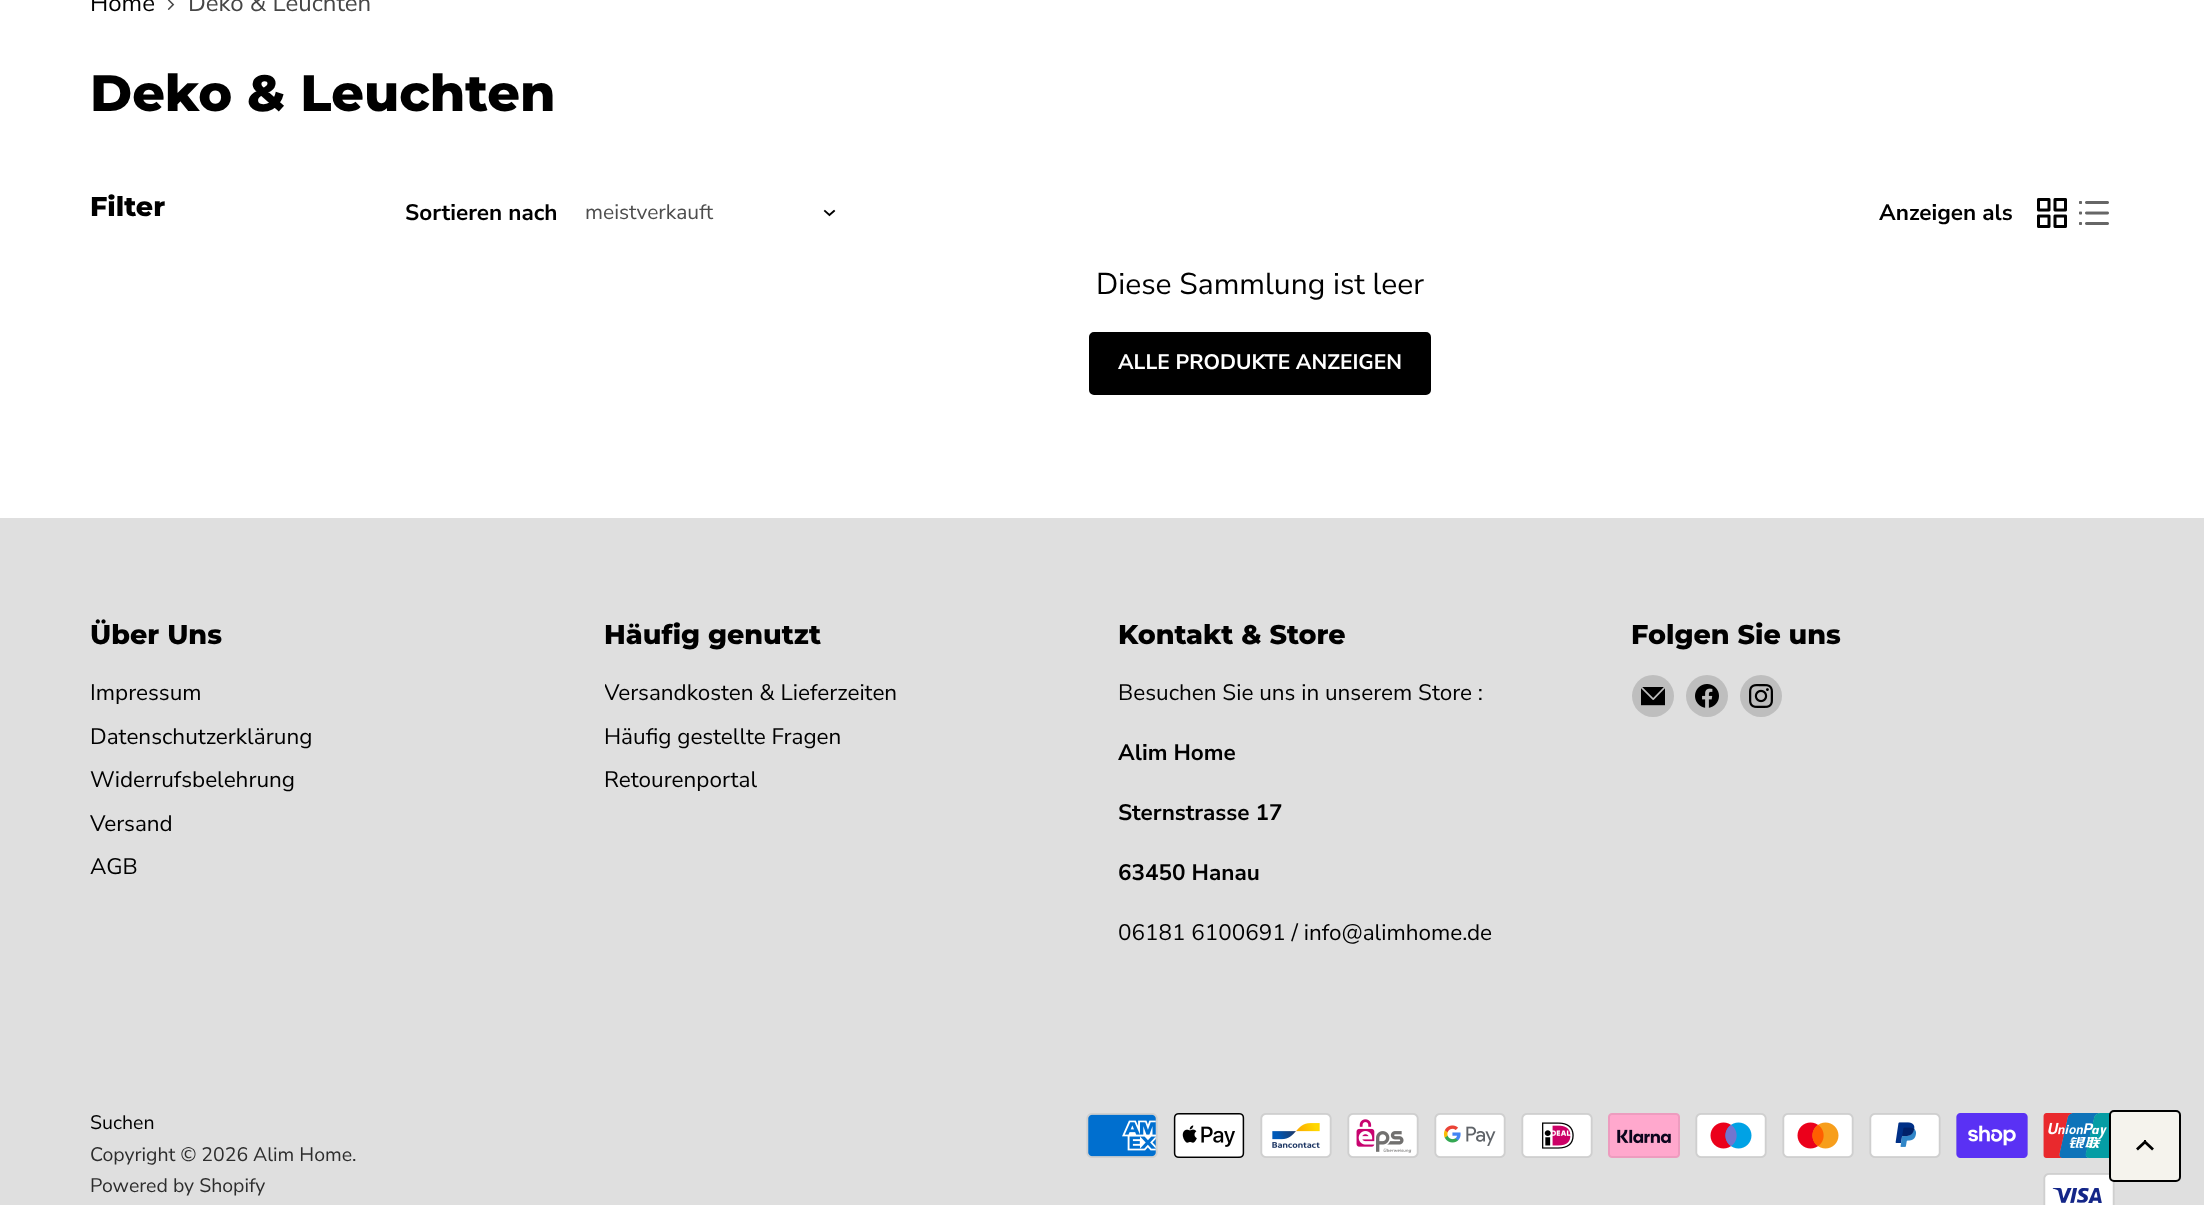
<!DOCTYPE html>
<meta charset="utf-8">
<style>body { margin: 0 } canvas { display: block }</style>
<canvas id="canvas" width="2204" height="1205"></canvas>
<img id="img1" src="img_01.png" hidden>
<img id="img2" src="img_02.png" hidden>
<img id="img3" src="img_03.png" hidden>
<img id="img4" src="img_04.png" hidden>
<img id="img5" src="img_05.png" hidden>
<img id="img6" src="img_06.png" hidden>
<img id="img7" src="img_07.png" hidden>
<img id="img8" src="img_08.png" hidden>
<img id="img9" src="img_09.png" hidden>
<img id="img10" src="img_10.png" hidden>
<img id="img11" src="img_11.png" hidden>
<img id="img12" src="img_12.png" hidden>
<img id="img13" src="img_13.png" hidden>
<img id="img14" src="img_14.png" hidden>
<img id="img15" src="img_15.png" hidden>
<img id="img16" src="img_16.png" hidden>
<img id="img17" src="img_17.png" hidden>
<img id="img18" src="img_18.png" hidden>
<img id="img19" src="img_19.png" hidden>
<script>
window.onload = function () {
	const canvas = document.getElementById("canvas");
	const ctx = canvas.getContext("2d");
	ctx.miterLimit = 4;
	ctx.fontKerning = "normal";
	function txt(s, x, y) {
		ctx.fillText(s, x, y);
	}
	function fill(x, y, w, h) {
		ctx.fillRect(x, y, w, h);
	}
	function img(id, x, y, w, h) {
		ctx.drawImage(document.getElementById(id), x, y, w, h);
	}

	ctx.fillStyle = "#FFFFFF";
	fill(0, 0, 2204, 1205);
	img("img1", 167, 0, 8, 10);
	ctx.beginPath();
	ctx.moveTo(829.5, 215);
	ctx.lineTo(834, 211);
	ctx.moveTo(829.5, 215);
	ctx.lineTo(825, 211);
	ctx.strokeStyle = "#000000";
	ctx.lineWidth = 1.9;
	ctx.lineCap = "square";
	ctx.stroke();
	img("img2", 2037, 198, 30, 30);
	img("img3", 2079, 201, 30, 24);
	ctx.fillStyle = "#000000";
	ctx.beginPath();
	ctx.roundRect(1090, 333, 340, 61, 4);
	ctx.fill();
	ctx.lineWidth = 2;
	ctx.stroke();
	ctx.fillStyle = "#DFDFDF";
	fill(0, 518, 2204, 687);
	ctx.fillStyle = "#BEBEBE";
	ctx.beginPath();
	ctx.arc(1653, 696, 21, 0, Math.PI * 2);
	ctx.fill();
	img("img4", 1641, 687, 24, 19);
	ctx.beginPath();
	ctx.arc(1707, 696, 21, 0, Math.PI * 2);
	ctx.fill();
	img("img5", 1695, 684, 24, 24);
	ctx.beginPath();
	ctx.arc(1761, 696, 21, 0, Math.PI * 2);
	ctx.fill();
	img("img6", 1749, 684, 24, 24);
	img("img7", 1086, 1113, 72, 45);
	img("img8", 1173, 1113, 72, 45);
	img("img9", 1260, 1113, 72, 45);
	img("img10", 1347, 1113, 72, 45);
	img("img11", 1434, 1113, 72, 45);
	img("img12", 1521, 1113, 72, 45);
	img("img13", 1608, 1113, 72, 45);
	img("img14", 1695, 1113, 72, 45);
	img("img15", 1782, 1113, 72, 45);
	img("img16", 1869, 1113, 72, 45);
	img("img17", 1956, 1113, 72, 45);
	img("img18", 2043, 1113, 67, 45);
	img("img19", 2043, 1173, 72, 32);
	ctx.fillStyle = "#F5F3ED";
	ctx.beginPath();
	ctx.roundRect(2110, 1111, 70, 70, 4);
	ctx.fill();
	ctx.stroke();
	ctx.beginPath();
	ctx.moveTo(2145, 1142);
	ctx.lineTo(2138, 1148.5);
	ctx.moveTo(2145, 1142);
	ctx.lineTo(2152, 1148.5);
	ctx.lineWidth = 2.8;
	ctx.stroke();
	ctx.font = "24px Nunito Sans";
	ctx.fillStyle = "#000000";
	txt("Home", 90, 11);
	ctx.fillStyle = "#464646";
	txt("Deko & Leuchten", 188, 11);
	ctx.font = "800 51px Montserrat";
	ctx.fillStyle = "#000000";
	txt("Deko & Leuchten", 90, 111);
	ctx.font = "800 27px Montserrat";
	txt("Filter", 90, 216);
	ctx.font = "bold 22.5px Nunito Sans";
	txt("Sortieren nach", 405, 220);
	ctx.font = "21px Nunito Sans";
	ctx.fillStyle = "#4D4D4D";
	txt("meistverkauft", 585, 219);
	ctx.font = "bold 22.5px Nunito Sans";
	ctx.fillStyle = "#000000";
	txt("Anzeigen als", 1879, 220);
	ctx.font = "30px Nunito Sans";
	txt("Diese Sammlung ist leer", 1096, 294);
	ctx.font = "bold 21px Nunito Sans";
	ctx.fillStyle = "#FFFFFF";
	txt("ALLE PRODUKTE ANZEIGEN", 1118, 369);
	ctx.font = "800 27px Montserrat";
	ctx.fillStyle = "#000000";
	txt("Über Uns", 90, 644);
	ctx.font = "22.5px Nunito Sans";
	txt("Impressum", 90, 700);
	txt("Datenschutzerklärung", 90, 744);
	txt("Widerrufsbelehrung", 90, 787);
	txt("Versand", 90, 831);
	txt("AGB", 90, 874);
	ctx.font = "800 27px Montserrat";
	txt("Häufig genutzt", 604, 644);
	ctx.save();
	ctx.beginPath();
	ctx.rect(605, 675, 453, 123);
	ctx.clip();
	ctx.font = "22.5px Nunito Sans";
	txt("Versandkosten & Lieferzeiten", 604, 700);
	ctx.restore();
	ctx.font = "22.5px Nunito Sans";
	txt("Häufig gestellte Fragen", 604, 744);
	txt("Retourenportal", 604, 787);
	ctx.font = "800 27px Montserrat";
	txt("Kontakt & Store", 1118, 644);
	ctx.font = "22.5px Nunito Sans";
	txt("Besuchen Sie uns in unserem Store :", 1118, 700);
	ctx.font = "bold 22.5px Nunito Sans";
	txt("Alim Home", 1118, 760);
	txt("Sternstrasse 17", 1118, 820);
	txt("63450 Hanau", 1118, 880);
	ctx.font = "22.5px Nunito Sans";
	txt("06181 6100691 / info@alimhome.de", 1118, 940);
	ctx.font = "800 27px Montserrat";
	txt("Folgen Sie uns", 1631, 644);
	ctx.font = "19.5px Nunito Sans";
	txt("Suchen", 90, 1129);
	ctx.fillStyle = "#2D2D2D";
	txt("Copyright © 2026 Alim Home.", 90, 1161);
	txt("Powered by Shopify", 90, 1192);
};
</script>
